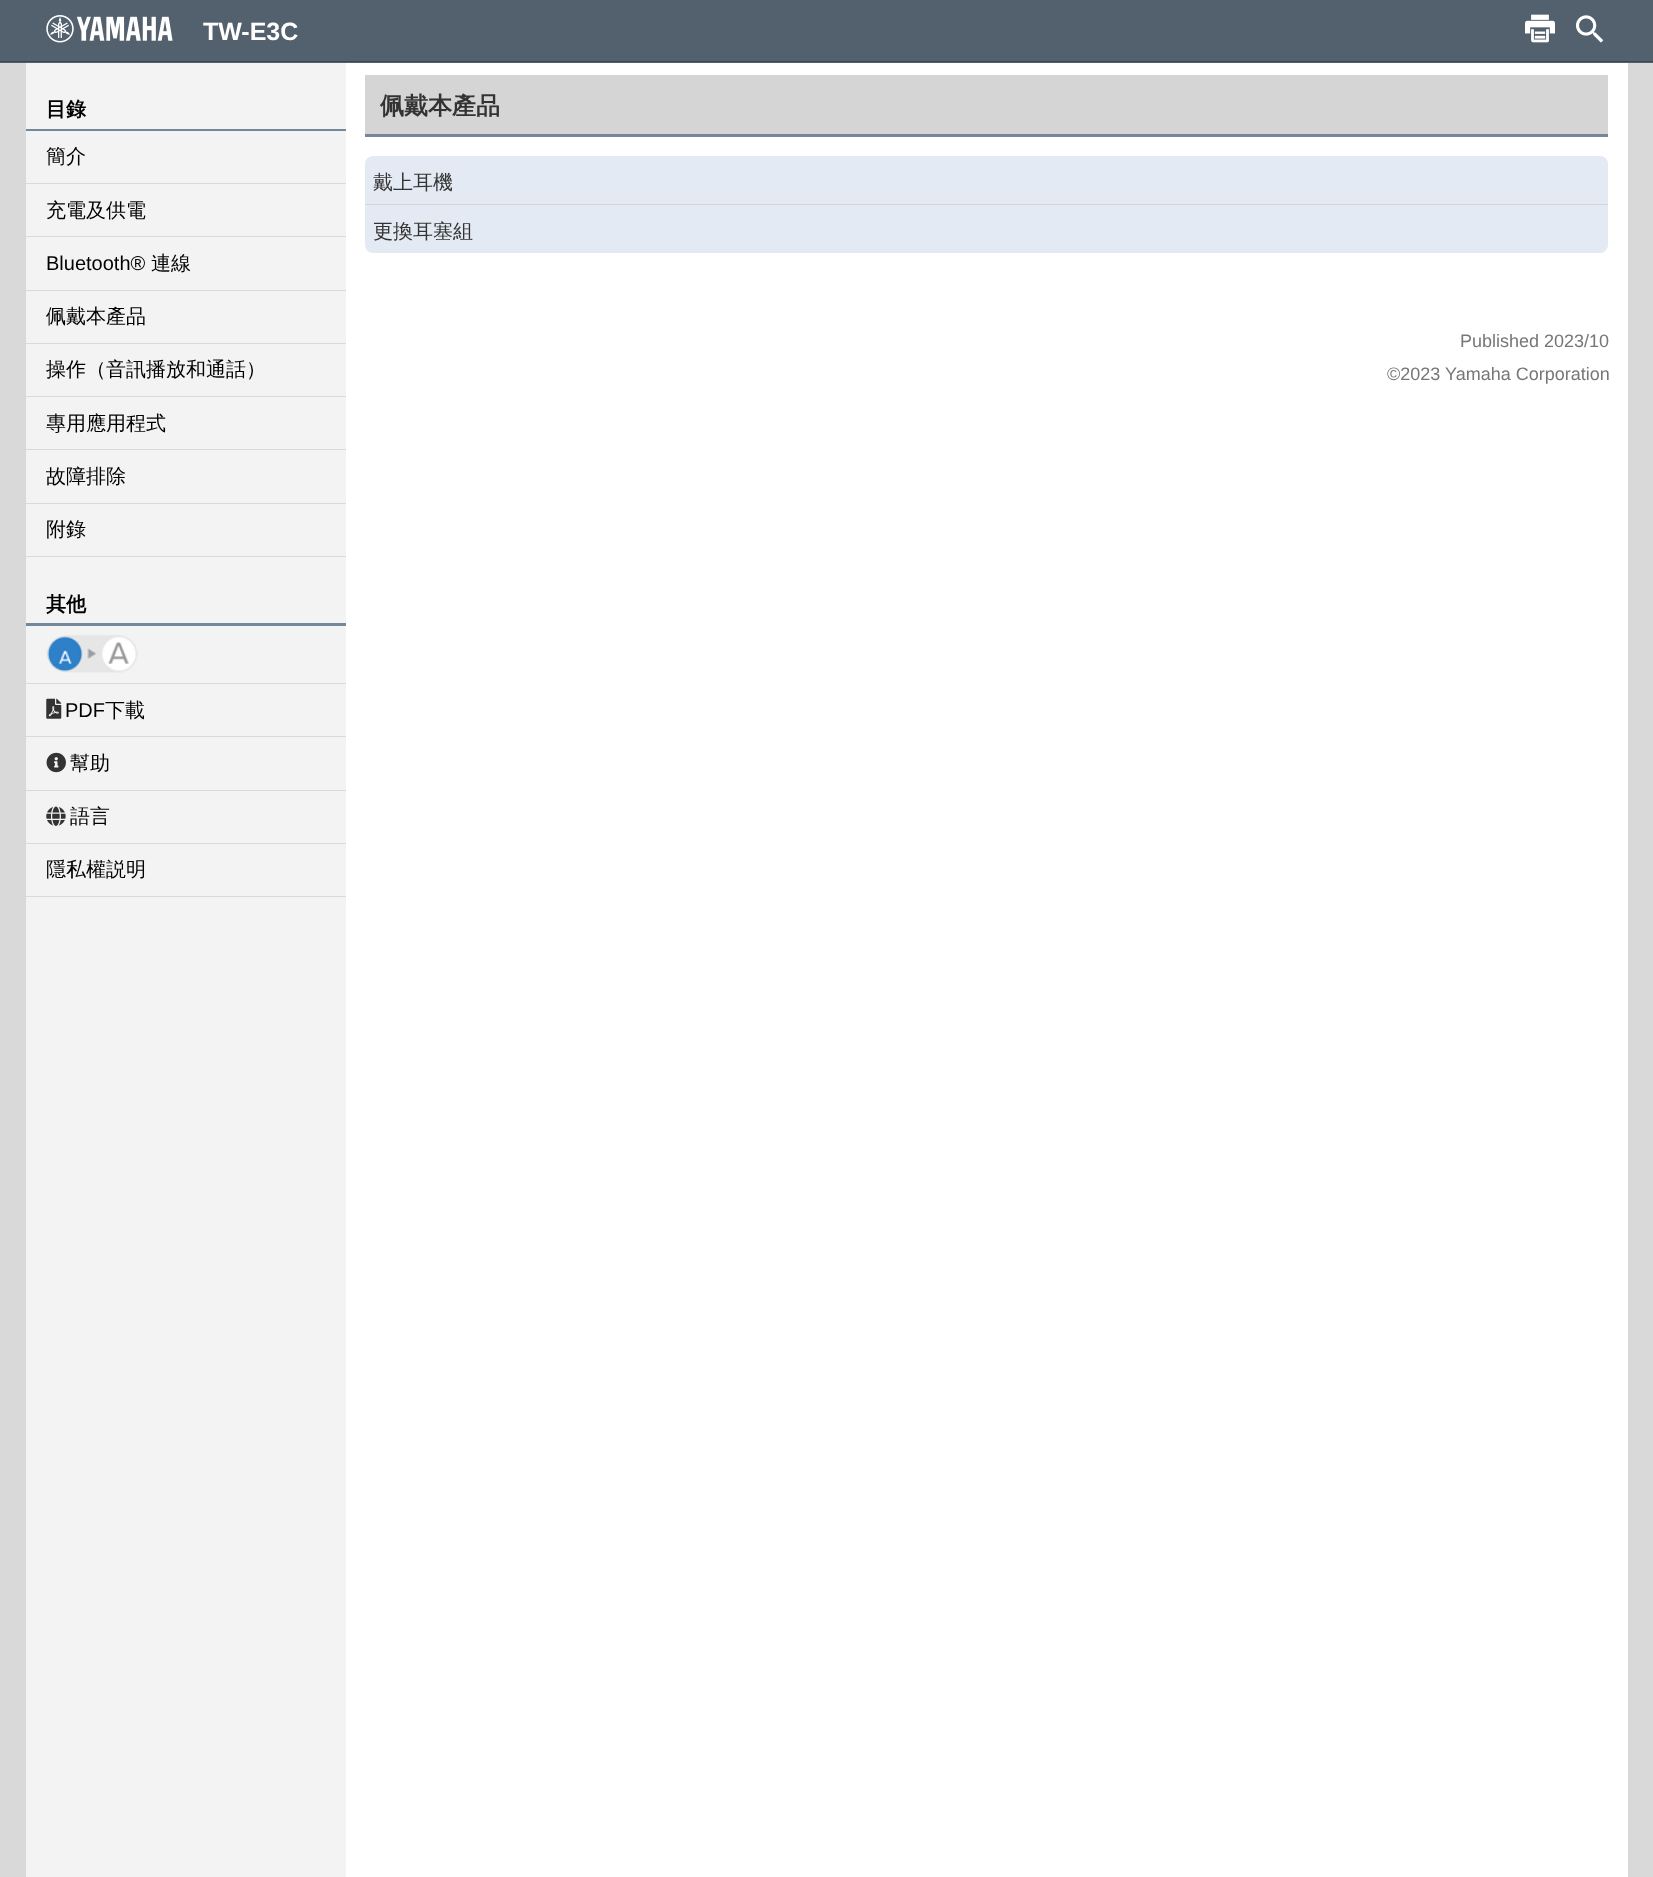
<!DOCTYPE html>
<meta charset="utf-8">
<style>body { margin: 0 } canvas { display: block }</style>
<canvas id="canvas" width="1653" height="1877"></canvas>
<img id="img1" src="img_01.png" hidden>
<img id="img2" src="img_02.png" hidden>
<img id="img3" src="img_03.png" hidden>
<img id="img4" src="img_04.png" hidden>
<img id="img5" src="img_05.png" hidden>
<img id="img6" src="img_06.png" hidden>
<img id="img7" src="img_07.png" hidden>
<script>
window.onload = function () {
	const canvas = document.getElementById("canvas");
	const ctx = canvas.getContext("2d");
	ctx.miterLimit = 4;
	ctx.fontKerning = "normal";
	function txt(s, x, y) {
		ctx.fillText(s, x, y);
	}
	function fill(x, y, w, h) {
		ctx.fillRect(x, y, w, h);
	}
	function img(id, x, y, w, h) {
		ctx.drawImage(document.getElementById(id), x, y, w, h);
	}

	ctx.fillStyle = "#D9D9D9";
	fill(0, 0, 1653, 1877);
	ctx.fillStyle = "#F3F3F4";
	fill(26, 63, 320, 1814);
	ctx.fillStyle = "#75879B";
	fill(26, 129, 320, 2);
	ctx.fillStyle = "#D9D9D9";
	fill(26, 183, 320, 1);
	fill(26, 236, 320, 1);
	fill(26, 290, 320, 1);
	fill(26, 343, 320, 1);
	fill(26, 396, 320, 1);
	fill(26, 449, 320, 1);
	fill(26, 503, 320, 1);
	fill(26, 556, 320, 1);
	ctx.fillStyle = "#75879B";
	fill(26, 623, 320, 3);
	ctx.fillStyle = "#D9D9D9";
	fill(26, 683, 320, 1);
	img("img1", 46, 635, 92, 38);
	fill(26, 736, 320, 1);
	img("img2", 46, 698, 16, 21);
	fill(26, 790, 320, 1);
	img("img3", 46, 752, 20, 21);
	fill(26, 843, 320, 1);
	img("img4", 46, 806, 20, 20);
	fill(26, 896, 320, 1);
	ctx.fillStyle = "#53606D";
	fill(0, 0, 1653, 63);
	ctx.fillStyle = "#3A4651";
	fill(0, 61, 1653, 1);
	img("img5", 46, 15, 127, 28);
	img("img6", 1525, 14, 30, 29);
	img("img7", 1575, 15, 29, 28);
	ctx.fillStyle = "#FFFFFF";
	fill(346, 63, 1282, 1814);
	ctx.fillStyle = "#D5D5D5";
	fill(365, 75, 1243, 59);
	ctx.fillStyle = "#75879B";
	fill(365, 134, 1243, 3);
	ctx.fillStyle = "#E4EAF3";
	ctx.beginPath();
	ctx.roundRect(365, 156, 1243, 48, [8, 8, 0, 0]);
	ctx.fill();
	ctx.fillStyle = "#D5D5D5";
	fill(365, 204, 1243, 1);
	ctx.fillStyle = "#E4EAF3";
	ctx.beginPath();
	ctx.roundRect(365, 205, 1243, 48, [0, 0, 8, 8]);
	ctx.fill();
	ctx.font = "bold 20px WenQuanYi Zen Hei";
	ctx.fillStyle = "#000000";
	txt("目錄", 46, 116);
	ctx.font = "500 20px WenQuanYi Zen Hei";
	txt("簡介", 46, 163);
	txt("充電及供電", 46, 217);
	ctx.font = "20px Liberation Sans";
	txt("Bluetooth®", 46, 270);
	ctx.font = "500 20px WenQuanYi Zen Hei";
	txt("連線", 151, 270);
	txt("佩戴本產品", 46, 323);
	txt("操作（音訊播放和通話）", 46, 376);
	txt("專用應用程式", 46, 430);
	txt("故障排除", 46, 483);
	txt("附錄", 46, 536);
	ctx.font = "bold 20px WenQuanYi Zen Hei";
	txt("其他", 46, 611);
	ctx.font = "20px Liberation Sans";
	txt("PDF", 65, 717);
	ctx.font = "500 20px WenQuanYi Zen Hei";
	txt("下載", 105, 717);
	txt("幫助", 70, 770);
	txt("語言", 70, 823);
	txt("隱私權説明", 46, 876);
	ctx.font = "bold 25px Liberation Sans";
	ctx.fillStyle = "#FFFFFF";
	txt("TW-E3C", 203, 40);
	ctx.font = "bold 24px WenQuanYi Zen Hei";
	ctx.fillStyle = "#333333";
	txt("佩戴本產品", 380, 114);
	ctx.font = "500 20px WenQuanYi Zen Hei";
	txt("戴上耳機", 373, 189);
	txt("更換耳塞組", 373, 238);
	ctx.font = "18px Liberation Sans";
	ctx.fillStyle = "#777777";
	txt("Published 2023/10", 1460, 347);
	txt("©2023 Yamaha Corporation", 1387, 380);
};
</script>
